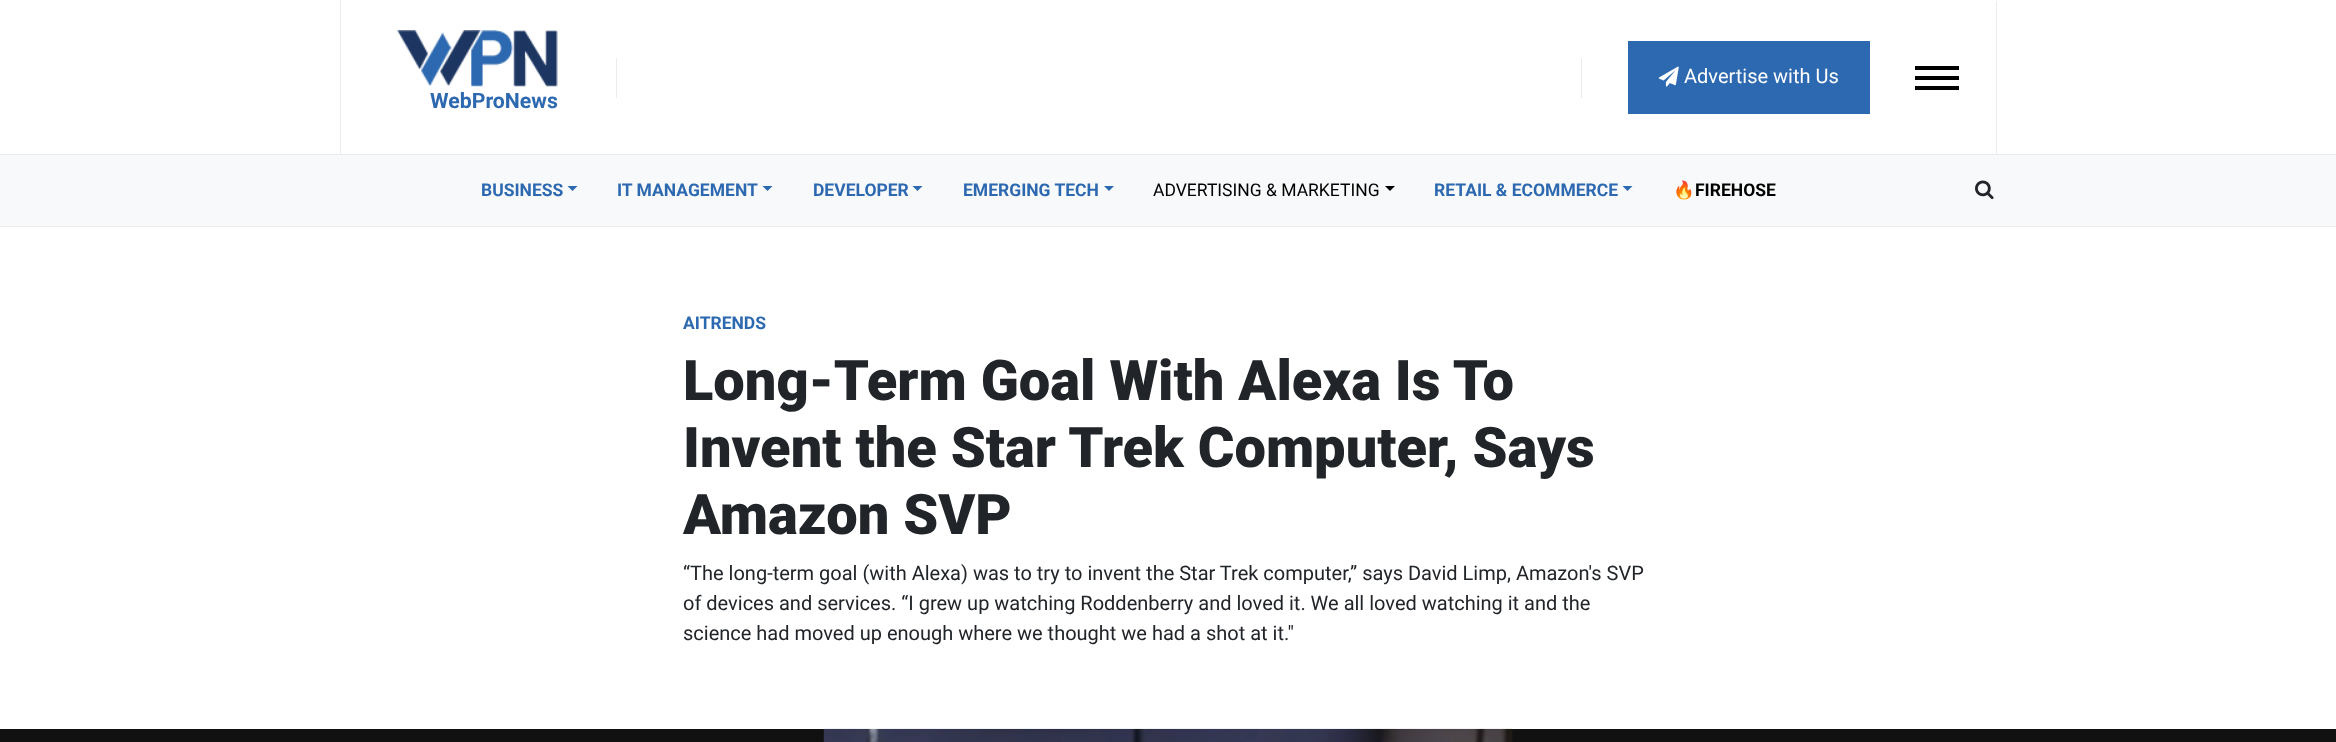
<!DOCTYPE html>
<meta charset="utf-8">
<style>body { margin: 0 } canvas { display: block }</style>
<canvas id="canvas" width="2336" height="742"></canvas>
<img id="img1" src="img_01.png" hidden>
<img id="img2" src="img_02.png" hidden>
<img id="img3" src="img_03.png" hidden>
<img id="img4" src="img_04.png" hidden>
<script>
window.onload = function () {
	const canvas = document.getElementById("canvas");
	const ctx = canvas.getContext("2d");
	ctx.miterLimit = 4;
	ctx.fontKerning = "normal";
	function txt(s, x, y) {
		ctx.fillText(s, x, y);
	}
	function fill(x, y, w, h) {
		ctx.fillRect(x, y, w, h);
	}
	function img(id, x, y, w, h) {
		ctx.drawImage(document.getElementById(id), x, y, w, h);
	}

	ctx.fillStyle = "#FFFFFF";
	fill(0, 0, 2336, 742);
	ctx.fillStyle = "#ECECEC";
	fill(0, 154, 2336, 1);
	fill(1581, 58, 1, 40);
	fill(616, 58, 1, 40);
	fill(1996, 1, 1, 153);
	ctx.fillStyle = "#2D69B0";
	fill(1628, 41, 242, 73);
	img("img1", 1658, 66, 21, 21);
	ctx.fillStyle = "#000000";
	fill(1915, 66, 44, 4);
	fill(1915, 76, 44, 4);
	fill(1915, 86, 44, 4);
	ctx.fillStyle = "#ECECEC";
	fill(340, 0, 1, 154);
	img("img2", 397, 30, 161, 57);
	fill(0, 226, 2336, 1);
	ctx.fillStyle = "#F8F9FA";
	fill(0, 155, 2336, 71);
	ctx.fillStyle = "#2D69B0";
	ctx.beginPath();
	ctx.moveTo(567.5, 186);
	ctx.lineTo(577.5, 186);
	ctx.lineTo(572.5, 191);
	ctx.closePath();
	ctx.fill();
	ctx.beginPath();
	ctx.moveTo(762.5, 186);
	ctx.lineTo(772.5, 186);
	ctx.lineTo(767.5, 191);
	ctx.closePath();
	ctx.fill();
	ctx.beginPath();
	ctx.moveTo(912.5, 186);
	ctx.lineTo(922.5, 186);
	ctx.lineTo(917.5, 191);
	ctx.closePath();
	ctx.fill();
	ctx.beginPath();
	ctx.moveTo(1104, 186);
	ctx.lineTo(1114, 186);
	ctx.lineTo(1109, 191);
	ctx.closePath();
	ctx.fill();
	ctx.fillStyle = "#000000";
	ctx.beginPath();
	ctx.moveTo(1385, 186);
	ctx.lineTo(1395, 186);
	ctx.lineTo(1390, 191);
	ctx.closePath();
	ctx.fill();
	ctx.fillStyle = "#2D69B0";
	ctx.beginPath();
	ctx.moveTo(1622.5, 186);
	ctx.lineTo(1632.5, 186);
	ctx.lineTo(1627.5, 191);
	ctx.closePath();
	ctx.fill();
	img("img3", 1975, 180, 19, 20);
	ctx.fillStyle = "#111111";
	fill(0, 729, 2336, 13);
	img("img4", 823, 728, 690, 14);
	ctx.font = "20px Roboto";
	ctx.fillStyle = "#FFFFFF";
	txt("Advertise with Us", 1684, 83);
	ctx.font = "bold 21.25px Roboto";
	ctx.fillStyle = "#2D69B0";
	txt("WebProNews", 430, 108);
	ctx.font = "bold 17.5px Roboto";
	txt("BUSINESS", 481, 196);
	txt("IT MANAGEMENT", 617, 196);
	txt("DEVELOPER", 813, 196);
	txt("EMERGING TECH", 963, 196);
	ctx.font = "17.5px Roboto";
	ctx.fillStyle = "#000000";
	txt("ADVERTISING & MARKETING", 1153, 196);
	ctx.font = "bold 17.5px Roboto";
	ctx.fillStyle = "#2D69B0";
	txt("RETAIL & ECOMMERCE", 1434, 196);
	ctx.font = "bold 17.5px Noto Color Emoji";
	ctx.fillStyle = "#000000";
	txt("🔥", 1673, 196);
	ctx.font = "bold 17.5px Roboto";
	txt("FIREHOSE", 1695, 196);
	ctx.fillStyle = "#2D69B0";
	txt("AITRENDS", 683, 329);
	ctx.font = "900 56px Roboto";
	ctx.fillStyle = "#212529";
	txt("Long-Term Goal With Alexa Is To", 683, 400);
	txt("Invent the Star Trek Computer, Says", 683, 467);
	txt("Amazon SVP", 683, 534);
	ctx.font = "20px Roboto";
	txt("“The long-term goal (with Alexa) was to try to invent the Star Trek computer,” says David Limp, Amazon's SVP", 683, 580);
	txt("of devices and services. “I grew up watching Roddenberry and loved it. We all loved watching it and the", 683, 610);
	txt("science had moved up enough where we thought we had a shot at it.\"", 683, 640);
};
</script>
